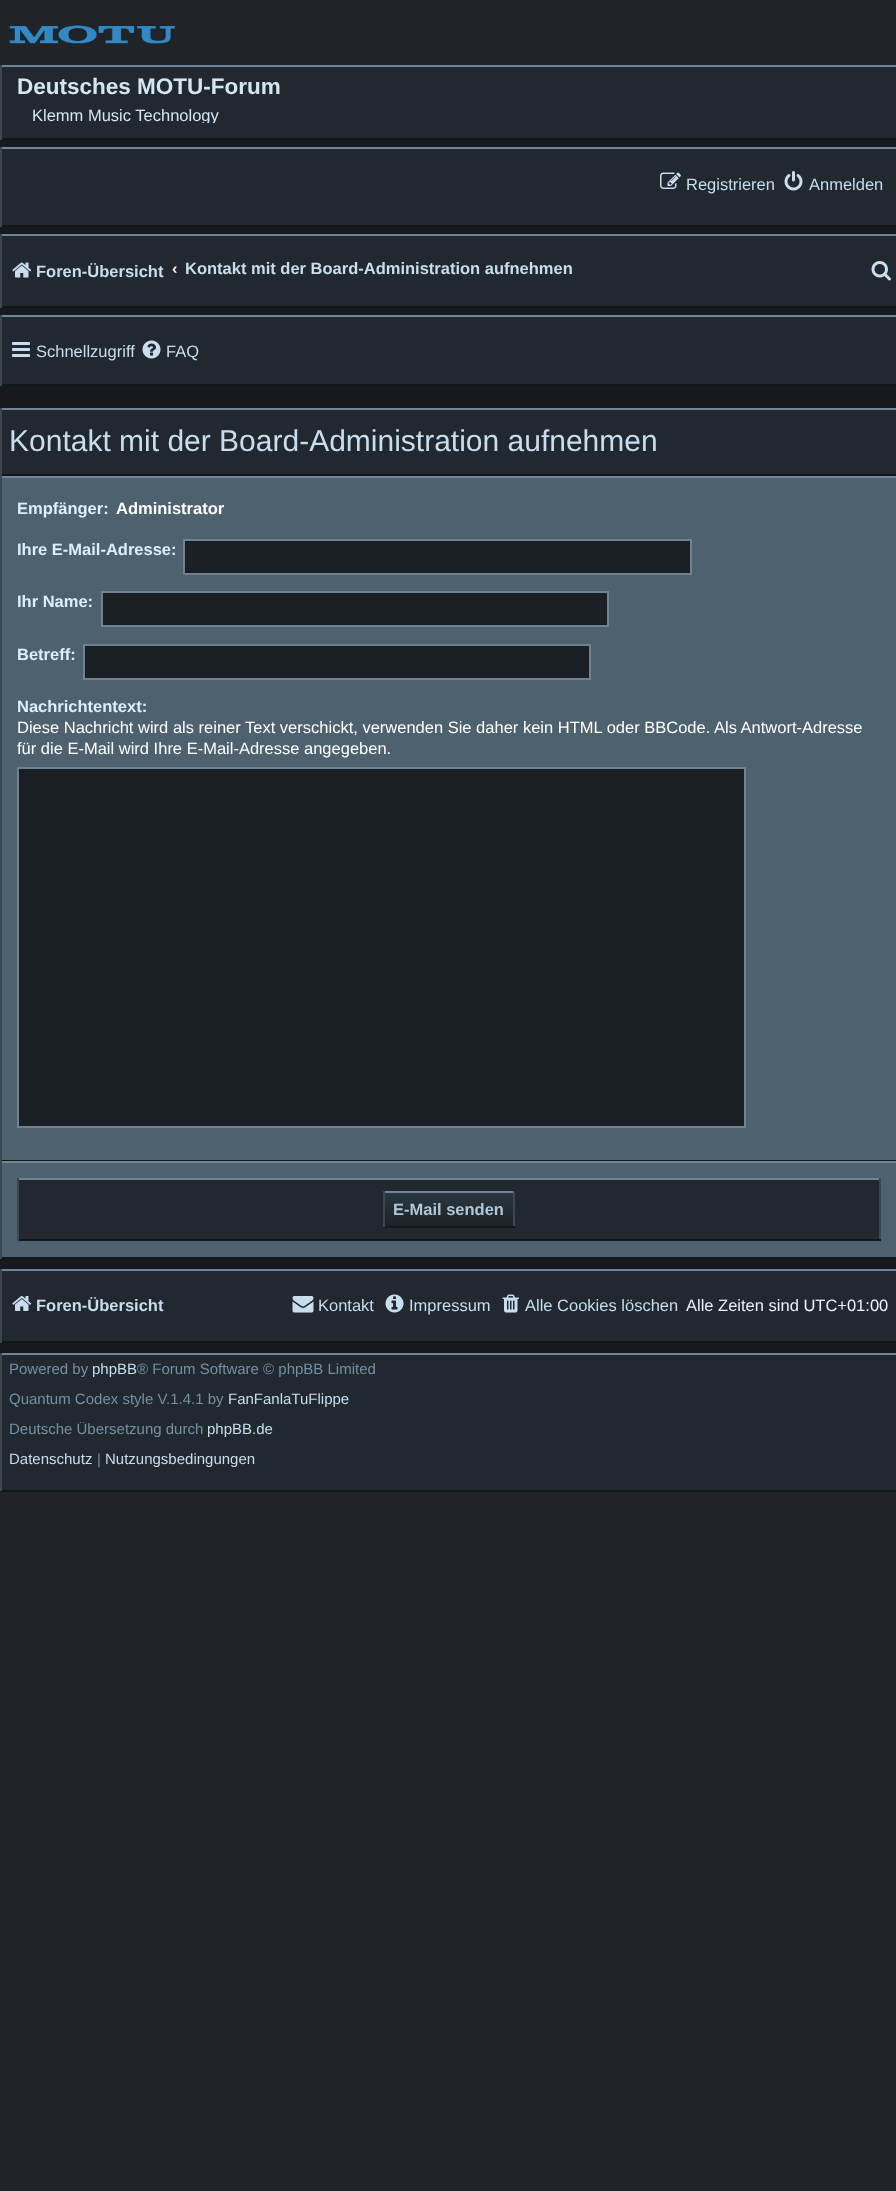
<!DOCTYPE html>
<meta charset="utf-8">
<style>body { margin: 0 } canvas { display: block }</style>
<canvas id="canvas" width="896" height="2191"></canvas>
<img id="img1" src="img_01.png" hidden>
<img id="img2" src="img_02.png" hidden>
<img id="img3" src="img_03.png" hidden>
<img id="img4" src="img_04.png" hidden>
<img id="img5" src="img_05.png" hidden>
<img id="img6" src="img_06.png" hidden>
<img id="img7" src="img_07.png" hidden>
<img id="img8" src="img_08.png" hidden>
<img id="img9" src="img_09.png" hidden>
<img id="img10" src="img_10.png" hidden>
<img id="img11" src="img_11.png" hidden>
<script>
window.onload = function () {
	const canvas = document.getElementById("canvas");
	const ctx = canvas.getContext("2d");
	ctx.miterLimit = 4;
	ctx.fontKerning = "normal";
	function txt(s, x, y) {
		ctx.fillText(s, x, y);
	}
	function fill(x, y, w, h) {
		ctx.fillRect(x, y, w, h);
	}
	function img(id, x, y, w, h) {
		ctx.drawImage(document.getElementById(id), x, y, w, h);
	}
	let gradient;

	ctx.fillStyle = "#202428";
	fill(0, 0, 896, 2191);
	img("img1", 9, 25, 166, 19);
	ctx.fillStyle = "#16191D";
	fill(0, 140, 896, 1213);
	ctx.fillStyle = "#21282F";
	fill(2, 67, 894, 71);
	ctx.fillStyle = "#728594";
	fill(0, 65, 896, 2);
	ctx.fillStyle = "#121619";
	fill(0, 138, 896, 2);
	ctx.fillStyle = "#3C4750";
	fill(0, 65, 2, 75);
	ctx.fillStyle = "#21282F";
	fill(2, 149, 894, 76);
	ctx.fillStyle = "#728594";
	fill(0, 147, 896, 2);
	ctx.fillStyle = "#121619";
	fill(0, 225, 896, 2);
	ctx.fillStyle = "#3C4750";
	fill(0, 147, 2, 80);
	img("img2", 660, 172, 21, 17);
	img("img3", 784, 171, 19, 20);
	ctx.fillStyle = "#21282F";
	fill(2, 236, 894, 70);
	ctx.fillStyle = "#728594";
	fill(0, 234, 896, 2);
	ctx.fillStyle = "#121619";
	fill(0, 306, 896, 2);
	ctx.fillStyle = "#3C4750";
	fill(0, 234, 2, 74);
	img("img4", 12, 262, 20, 16);
	img("img5", 871, 261, 20, 20);
	ctx.fillStyle = "#21282F";
	fill(2, 317, 894, 67);
	ctx.fillStyle = "#728594";
	fill(0, 315, 896, 2);
	ctx.fillStyle = "#121619";
	fill(0, 384, 896, 2);
	ctx.fillStyle = "#3C4750";
	fill(0, 315, 2, 71);
	img("img6", 12, 342, 18, 15);
	img("img7", 142, 340, 19, 19);
	ctx.fillStyle = "#21282F";
	fill(2, 410, 894, 64);
	ctx.fillStyle = "#728594";
	fill(0, 408, 896, 2);
	ctx.fillStyle = "#121619";
	fill(0, 474, 896, 2);
	ctx.fillStyle = "#3C4750";
	fill(0, 408, 2, 68);
	ctx.fillStyle = "#4E616F";
	fill(2, 478, 894, 682);
	ctx.fillStyle = "#728594";
	fill(0, 476, 896, 2);
	ctx.fillStyle = "#121619";
	fill(0, 1160, 896, 1);
	ctx.fillStyle = "#3C4750";
	fill(0, 476, 2, 685);
	ctx.fillStyle = "#1A1F24";
	ctx.beginPath();
	ctx.rect(184, 540, 507, 34);
	ctx.fill();
	ctx.strokeStyle = "#708291";
	ctx.lineWidth = 2;
	ctx.stroke();
	ctx.beginPath();
	ctx.rect(102, 592, 506, 34);
	ctx.fill();
	ctx.stroke();
	ctx.beginPath();
	ctx.rect(84, 645, 506, 34);
	ctx.fill();
	ctx.stroke();
	ctx.beginPath();
	ctx.rect(18, 768, 727, 359);
	ctx.fill();
	ctx.stroke();
	ctx.fillStyle = "#4E616F";
	fill(2, 1163, 894, 94);
	ctx.fillStyle = "#728594";
	fill(0, 1161, 896, 2);
	ctx.fillStyle = "#121619";
	fill(0, 1257, 896, 2);
	ctx.fillStyle = "#3C4750";
	fill(0, 1161, 2, 98);
	ctx.fillStyle = "#21282F";
	fill(19, 1180, 860, 59);
	ctx.fillStyle = "#728594";
	fill(17, 1178, 864, 2);
	ctx.fillStyle = "#3C4750";
	fill(879, 1178, 2, 63);
	ctx.fillStyle = "#121619";
	fill(17, 1239, 864, 2);
	ctx.fillStyle = "#3C4750";
	fill(17, 1178, 2, 63);
	gradient = ctx.createLinearGradient(449, 1193, 449, 1226);
	gradient.addColorStop(0, "#2B363F");
	gradient.addColorStop(1, "#1C2329");
	ctx.fillStyle = gradient;
	fill(385, 1193, 128, 33);
	ctx.fillStyle = "#728594";
	fill(383, 1191, 132, 2);
	ctx.fillStyle = "#3C4750";
	fill(513, 1191, 2, 36);
	ctx.fillStyle = "#13171A";
	fill(383, 1226, 132, 2);
	ctx.fillStyle = "#3C4750";
	fill(383, 1191, 2, 36);
	ctx.fillStyle = "#21282F";
	fill(2, 1271, 894, 70);
	ctx.fillStyle = "#728594";
	fill(0, 1269, 896, 2);
	ctx.fillStyle = "#121619";
	fill(0, 1341, 896, 2);
	ctx.fillStyle = "#3C4750";
	fill(0, 1269, 2, 74);
	img("img8", 12, 1296, 20, 15);
	img("img9", 292, 1296, 22, 17);
	img("img10", 385, 1294, 19, 19);
	img("img11", 502, 1294, 17, 19);
	ctx.fillStyle = "#21282F";
	fill(2, 1355, 894, 135);
	ctx.fillStyle = "#728594";
	fill(0, 1353, 896, 2);
	ctx.fillStyle = "#121619";
	fill(0, 1490, 896, 2);
	ctx.fillStyle = "#3C4750";
	fill(0, 1353, 2, 138);
	ctx.font = "bold 22.5px Liberation Sans";
	ctx.fillStyle = "#D3E6F3";
	txt("Deutsches MOTU-Forum", 17, 94);
	ctx.save();
	ctx.beginPath();
	ctx.rect(32, 107, 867, 16);
	ctx.clip();
	ctx.font = "16.5px Liberation Sans";
	txt("Klemm Music Technology", 32, 121);
	ctx.restore();
	ctx.font = "16.5px Liberation Sans";
	ctx.fillStyle = "#C8DDED";
	txt("Registrieren", 686, 190);
	txt("Anmelden", 809, 190);
	ctx.font = "bold 16.5px Liberation Sans";
	txt("Foren-Übersicht", 36, 277);
	ctx.fillStyle = "#EAF1F9";
	txt("‹", 172, 274);
	ctx.fillStyle = "#C8DDED";
	txt("Kontakt mit der Board-Administration aufnehmen", 185, 274);
	ctx.font = "16.5px Liberation Sans";
	txt("Schnellzugriff", 36, 357);
	txt("FAQ", 166, 357);
	ctx.font = "30px Liberation Sans";
	txt("Kontakt mit der Board-Administration aufnehmen", 9, 451);
	ctx.font = "bold 16.5px Liberation Sans";
	ctx.fillStyle = "#DCEFFF";
	txt("Empfänger:", 17, 514);
	ctx.fillStyle = "#FFFFFF";
	txt("Administrator", 116, 514);
	ctx.fillStyle = "#DCEFFF";
	txt("Ihre E-Mail-Adresse:", 17, 555);
	txt("Ihr Name:", 17, 607);
	txt("Betreff:", 17, 660);
	txt("Nachrichtentext:", 17, 712);
	ctx.font = "16.5px Liberation Sans";
	ctx.fillStyle = "#FFFFFF";
	txt("Diese Nachricht wird als reiner Text verschickt, verwenden Sie daher kein HTML oder BBCode. Als Antwort-Adresse", 17, 733);
	txt("für die E-Mail wird Ihre E-Mail-Adresse angegeben.", 17, 754);
	ctx.font = "bold 16.5px Liberation Sans";
	ctx.fillStyle = "#B1C7D8";
	txt("E-Mail senden", 393, 1215);
	ctx.fillStyle = "#C8DDED";
	txt("Foren-Übersicht", 36, 1311);
	ctx.font = "16.5px Liberation Sans";
	txt("Kontakt", 318, 1311);
	txt("Impressum", 409, 1311);
	txt("Alle Cookies löschen", 525, 1311);
	ctx.fillStyle = "#EAF1F9";
	txt("Alle Zeiten sind UTC+01:00", 686, 1311);
	ctx.font = "15px Liberation Sans";
	ctx.fillStyle = "#7590A3";
	txt("Powered by", 9, 1374);
	ctx.save();
	ctx.beginPath();
	ctx.rect(9, 1362, 879, 15);
	ctx.clip();
	ctx.fillStyle = "#C8DDED";
	txt("phpBB", 92, 1374);
	ctx.fillStyle = "#7590A3";
	txt("® Forum Software © phpBB Limited", 137, 1374);
	ctx.restore();
	txt("Quantum Codex style V.1.4.1 by", 9, 1404);
	ctx.save();
	ctx.beginPath();
	ctx.rect(9, 1392, 879, 15);
	ctx.clip();
	ctx.fillStyle = "#C8DDED";
	txt("FanFanlaTuFlippe", 228, 1404);
	ctx.restore();
	ctx.save();
	ctx.beginPath();
	ctx.rect(9, 1422, 879, 15);
	ctx.clip();
	txt("Deutsche Übersetzung durch", 9, 1434);
	ctx.fillStyle = "#C8DDED";
	txt("phpBB.de", 207, 1434);
	ctx.restore();
	ctx.fillStyle = "#C8DDED";
	txt("Datenschutz", 9, 1464);
	ctx.fillStyle = "#7590A3";
	txt("|", 97, 1464);
	ctx.save();
	ctx.beginPath();
	ctx.rect(9, 1452, 879, 15);
	ctx.clip();
	ctx.fillStyle = "#C8DDED";
	txt("Nutzungsbedingungen", 105, 1464);
	ctx.restore();
};
</script>
